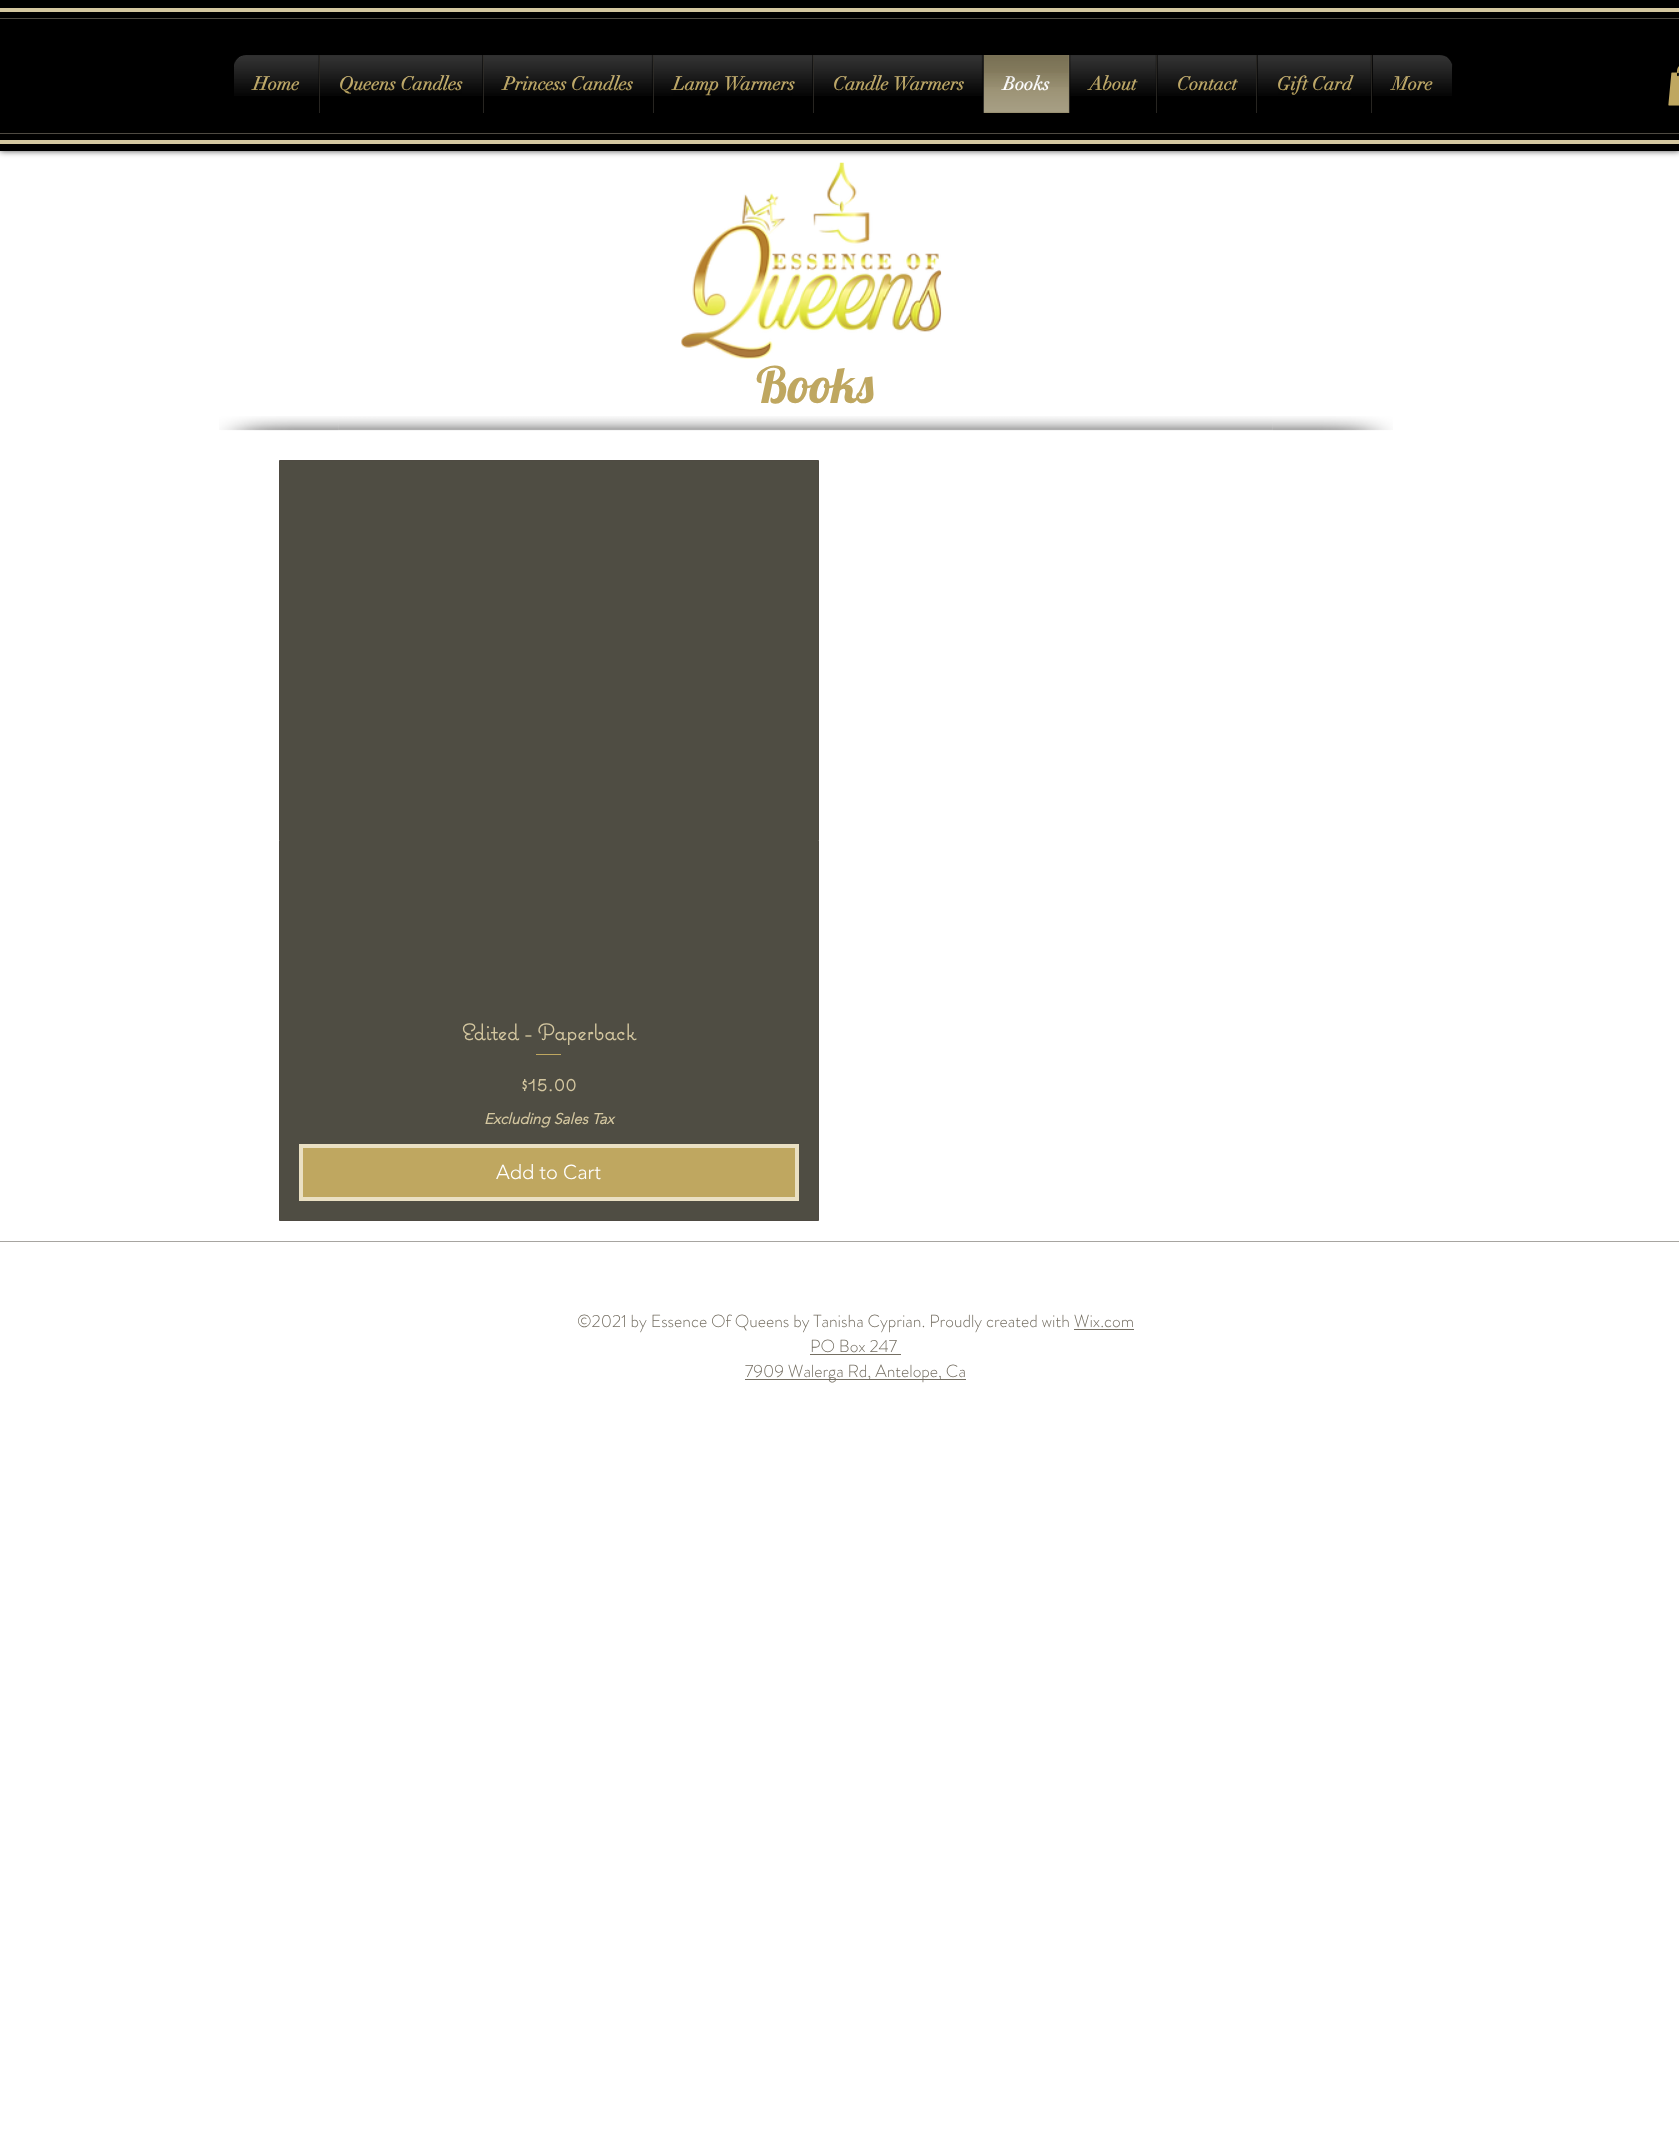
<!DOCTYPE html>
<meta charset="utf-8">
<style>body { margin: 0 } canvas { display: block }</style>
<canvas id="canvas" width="1679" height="2142"></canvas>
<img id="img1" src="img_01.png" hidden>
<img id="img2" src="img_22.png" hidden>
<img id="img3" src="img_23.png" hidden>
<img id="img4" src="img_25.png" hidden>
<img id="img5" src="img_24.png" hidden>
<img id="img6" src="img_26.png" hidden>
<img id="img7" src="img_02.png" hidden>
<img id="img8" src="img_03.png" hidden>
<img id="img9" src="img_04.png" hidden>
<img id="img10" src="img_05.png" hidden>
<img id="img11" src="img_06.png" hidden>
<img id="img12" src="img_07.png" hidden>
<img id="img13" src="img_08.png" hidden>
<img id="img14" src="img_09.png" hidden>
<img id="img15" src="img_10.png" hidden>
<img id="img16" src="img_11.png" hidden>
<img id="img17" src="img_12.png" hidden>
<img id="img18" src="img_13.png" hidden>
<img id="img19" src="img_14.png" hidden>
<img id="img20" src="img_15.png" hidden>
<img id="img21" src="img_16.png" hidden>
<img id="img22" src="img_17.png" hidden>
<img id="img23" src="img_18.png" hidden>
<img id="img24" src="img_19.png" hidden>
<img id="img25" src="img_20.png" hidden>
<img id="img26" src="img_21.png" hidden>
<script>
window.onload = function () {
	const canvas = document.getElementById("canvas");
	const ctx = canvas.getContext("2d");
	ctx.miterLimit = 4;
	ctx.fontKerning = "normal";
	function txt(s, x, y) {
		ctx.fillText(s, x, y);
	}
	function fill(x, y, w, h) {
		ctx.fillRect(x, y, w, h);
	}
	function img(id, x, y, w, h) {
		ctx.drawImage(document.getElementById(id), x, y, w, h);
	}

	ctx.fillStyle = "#FFFFFF";
	fill(0, 0, 1679, 2142);
	ctx.fillStyle = "rgba(0, 0, 0, 0.7)";
	ctx.filter = "blur(3px)";
	ctx.beginPath();
	ctx.rect(0, 0, 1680, 151);
	ctx.fill();
	ctx.filter = "none";
	ctx.fillStyle = "#000000";
	fill(0, 0, 1679, 151);
	ctx.fillStyle = "#D4C7A0";
	fill(0, 8, 1679, 4);
	fill(0, 140, 1679, 4);
	ctx.fillStyle = "#4E4A42";
	fill(0, 18, 1679, 1);
	fill(0, 133, 1679, 1);
	img("img1", 234, 55, 1219, 13);
	ctx.fillStyle = "#000000";
	ctx.beginPath();
	ctx.roundRect(234, 55, 85, 58, [13, 0, 0, 13]);
	ctx.fill();
	fill(320, 55, 163, 13);
	ctx.fillStyle = "#272521";
	fill(319, 55, 1, 58);
	ctx.fillStyle = "#000000";
	fill(484, 55, 169, 13);
	ctx.fillStyle = "#272521";
	fill(483, 55, 1, 58);
	ctx.fillStyle = "#000000";
	fill(654, 55, 159, 13);
	ctx.fillStyle = "#272521";
	fill(653, 55, 1, 58);
	ctx.fillStyle = "#000000";
	fill(814, 55, 169, 13);
	ctx.fillStyle = "#272521";
	fill(813, 55, 1, 58);
	ctx.fillStyle = "#918766";
	fill(984, 55, 85, 58);
	ctx.fillStyle = "#272521";
	fill(983, 55, 1, 58);
	ctx.fillStyle = "#000000";
	fill(1070, 55, 86, 13);
	ctx.fillStyle = "#272521";
	fill(1069, 55, 1, 58);
	ctx.fillStyle = "#000000";
	fill(1157, 55, 99, 13);
	ctx.fillStyle = "#272521";
	fill(1156, 55, 1, 58);
	ctx.fillStyle = "#000000";
	fill(1257, 55, 114, 13);
	ctx.fillStyle = "#272521";
	fill(1256, 55, 1, 58);
	ctx.fillStyle = "#000000";
	ctx.beginPath();
	ctx.roundRect(1371, 55, 82, 58, [0, 13, 13, 0]);
	ctx.fill();
	ctx.fillStyle = "#272521";
	fill(1371, 55, 1, 58);
	img("img2", 1668, 66, 11, 40);
	img("img3", 681, 162, 261, 197);
	img("img4", 338, 416, 935, 15);
	img("img5", 219, 416, 120, 15);
	img("img6", 1272, 416, 121, 15);
	ctx.fillStyle = "#4F4D43";
	ctx.beginPath();
	ctx.rect(279.5, 460.5, 539, 760);
	ctx.fill();
	ctx.strokeStyle = "#4E4A42";
	ctx.stroke();
	ctx.fillStyle = "#BFA760";
	fill(536, 1054, 25, 1);
	ctx.beginPath();
	ctx.rect(301, 1146, 496, 53);
	ctx.fill();
	ctx.strokeStyle = "#EAE0C3";
	ctx.lineWidth = 4;
	ctx.stroke();
	ctx.fillStyle = "#A7A5A1";
	fill(0, 1241, 1679, 1);
	ctx.fillStyle = "#756F63";
	fill(1074, 1329, 60, 1);
	fill(810, 1354, 91, 1);
	fill(745, 1379, 221, 1);
	ctx.font = "bold 18.75px didot";
	ctx.fillStyle = "#BFA760";
	txt("Home", 253, 90);
	img("img7", 234, 55, 85, 41);
	img("img8", 253, 81, 46, 9);
	txt("Queens Candles", 339, 90);
	img("img9", 320, 55, 163, 41);
	img("img10", 341, 81, 121, 13);
	txt("Princess Candles", 503, 90);
	img("img11", 483, 55, 170, 41);
	img("img12", 503, 81, 129, 9);
	txt("Lamp Warmers", 673, 90);
	img("img13", 653, 55, 160, 41);
	img("img14", 673, 81, 119, 15);
	txt("Candle Warmers", 833, 90);
	img("img15", 813, 55, 170, 41);
	img("img16", 834, 81, 128, 9);
	ctx.fillStyle = "#FFFFFF";
	txt("Books", 1003, 90);
	img("img17", 984, 55, 85, 32);
	img("img18", 983, 73, 86, 40);
	ctx.fillStyle = "#BFA760";
	txt("About", 1089, 90);
	img("img19", 1069, 55, 87, 41);
	img("img20", 1089, 81, 46, 9);
	txt("Contact", 1177, 90);
	img("img21", 1157, 55, 99, 41);
	img("img22", 1178, 81, 57, 9);
	txt("Gift Card", 1277, 90);
	img("img23", 1257, 55, 114, 41);
	img("img24", 1278, 81, 73, 14);
	txt("More", 1392, 90);
	img("img25", 1372, 55, 80, 41);
	img("img26", 1392, 81, 40, 9);
	ctx.font = "50px Lobster";
	txt("Books", 756, 403);
	ctx.font = "bold 22.5px 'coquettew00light'";
	ctx.fillStyle = "#D4C7A0";
	txt("Edited - Paperback", 462, 1040);
	txt("$15.00", 521, 1091);
	ctx.font = "italic bold 15px 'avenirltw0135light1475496'";
	txt("Excluding Sales Tax", 484, 1124);
	ctx.font = "300 20px 'avenirltw0135light1475496'";
	ctx.fillStyle = "#FFFFFF";
	txt("Add to Cart", 496, 1179);
	ctx.font = "300 17.5px 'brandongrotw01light'";
	ctx.fillStyle = "#756F63";
	txt("©2021 by Essence Of Queens by Tanisha Cyprian. Proudly created with Wix.com", 577, 1327);
	txt("PO Box 247", 810, 1352);
	txt("7909 Walerga Rd, Antelope, Ca", 745, 1377);
};
</script>
